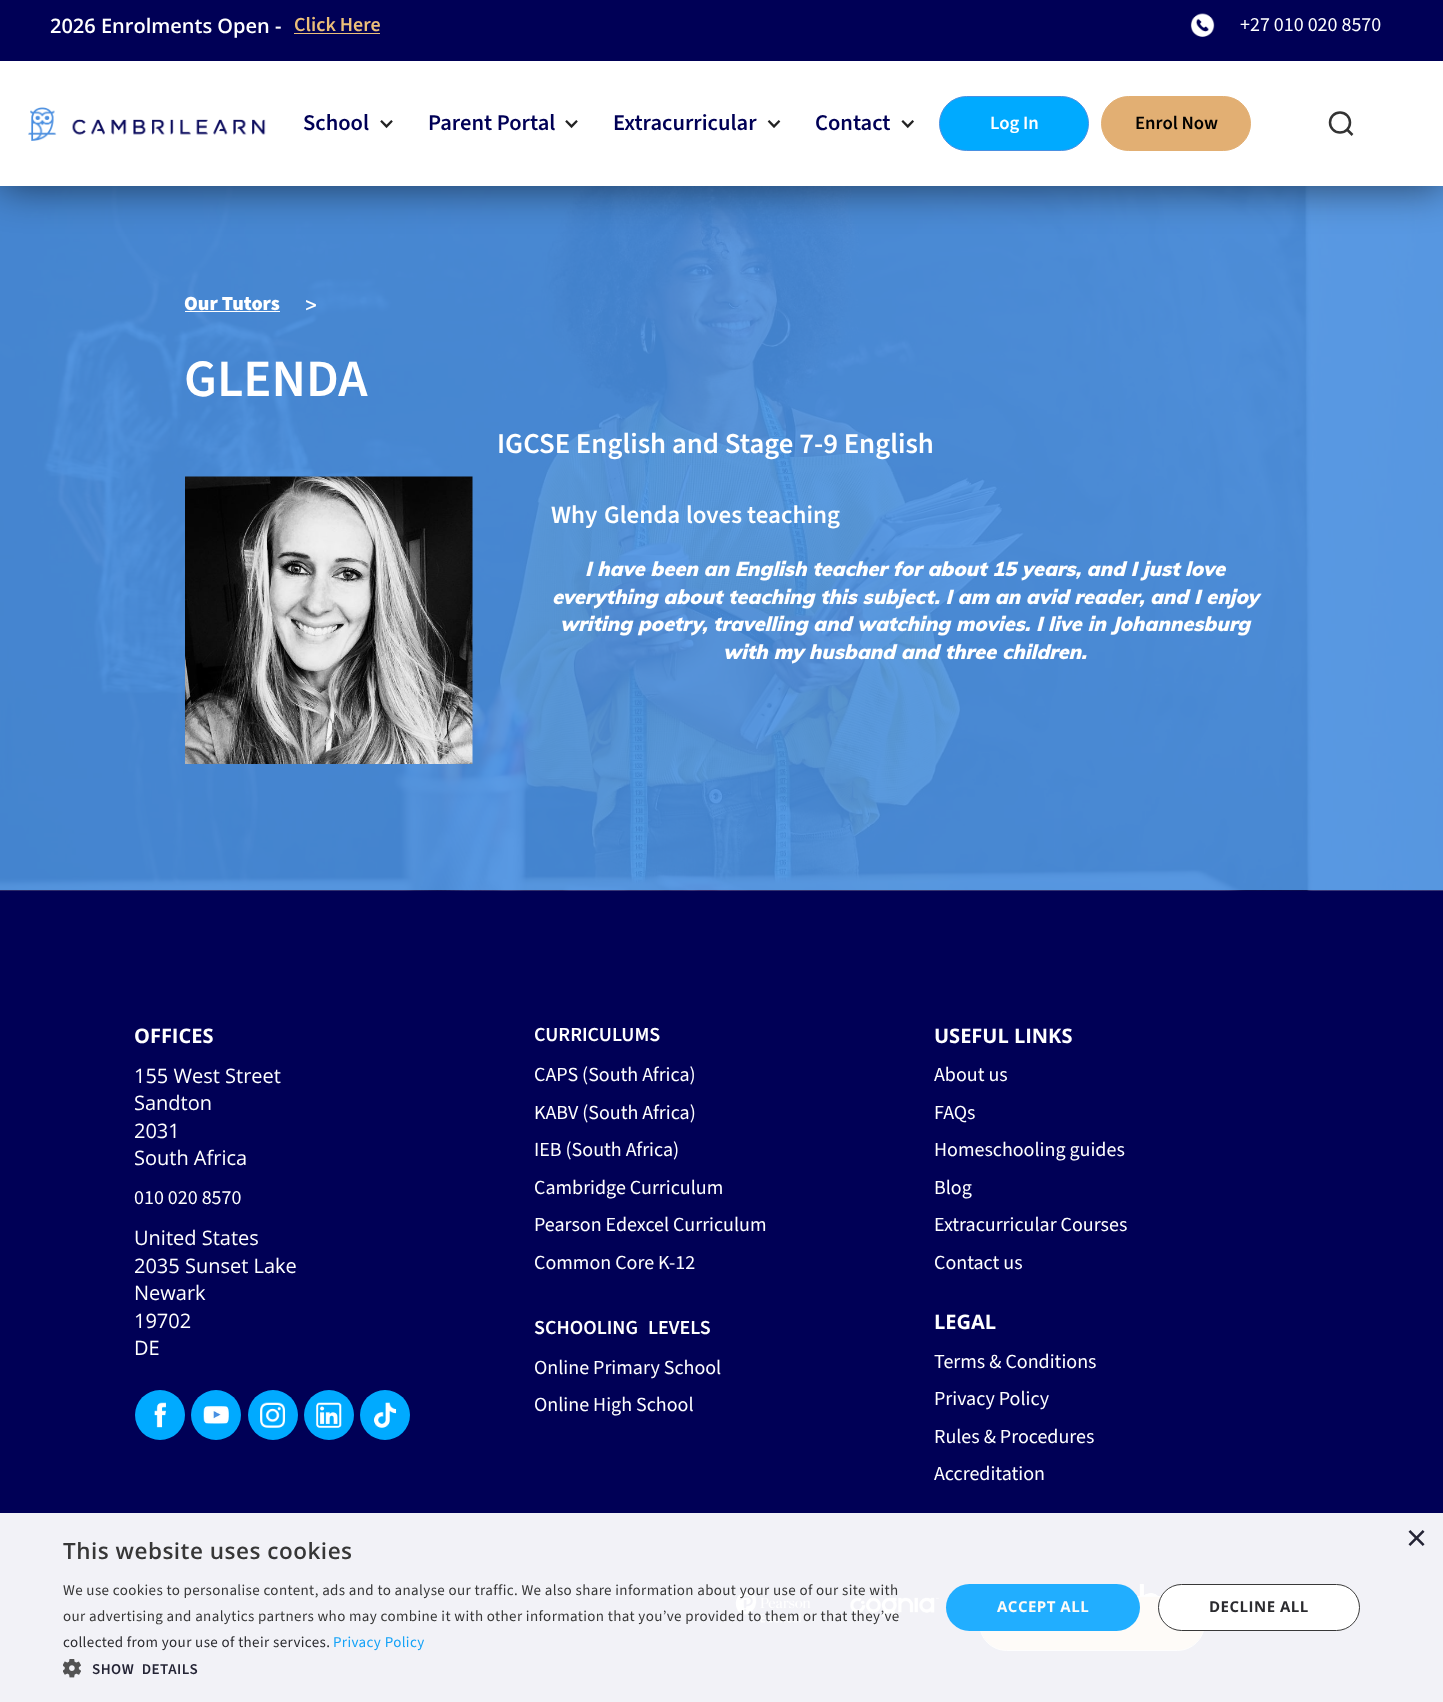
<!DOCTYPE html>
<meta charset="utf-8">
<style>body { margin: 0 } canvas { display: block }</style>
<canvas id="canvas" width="1443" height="1702"></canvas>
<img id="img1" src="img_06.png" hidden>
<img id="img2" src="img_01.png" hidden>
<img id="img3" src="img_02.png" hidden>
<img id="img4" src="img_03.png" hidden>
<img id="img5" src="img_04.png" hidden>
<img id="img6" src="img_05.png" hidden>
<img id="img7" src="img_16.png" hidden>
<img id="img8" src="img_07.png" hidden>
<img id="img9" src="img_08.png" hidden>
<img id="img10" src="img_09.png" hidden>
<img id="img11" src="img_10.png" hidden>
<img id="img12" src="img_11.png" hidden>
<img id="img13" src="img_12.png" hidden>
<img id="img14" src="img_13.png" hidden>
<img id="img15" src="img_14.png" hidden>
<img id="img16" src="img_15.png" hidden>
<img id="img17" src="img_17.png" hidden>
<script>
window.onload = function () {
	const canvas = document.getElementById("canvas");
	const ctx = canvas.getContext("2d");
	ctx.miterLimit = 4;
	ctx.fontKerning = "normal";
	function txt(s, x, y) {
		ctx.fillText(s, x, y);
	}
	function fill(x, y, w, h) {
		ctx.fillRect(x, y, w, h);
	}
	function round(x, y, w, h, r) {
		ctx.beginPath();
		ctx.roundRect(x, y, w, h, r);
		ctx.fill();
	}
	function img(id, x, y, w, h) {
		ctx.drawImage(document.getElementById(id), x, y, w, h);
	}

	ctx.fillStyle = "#000056";
	fill(0, 0, 1443, 1702);
	img("img1", 0, 186, 1443, 705);
	ctx.fillStyle = "rgba(0, 0, 0, 0.6)";
	ctx.filter = "blur(20.5px)";
	ctx.beginPath();
	ctx.rect(0, -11, 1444, 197);
	ctx.fill();
	ctx.filter = "none";
	ctx.fillStyle = "#FFFFFF";
	fill(0, 61, 1443, 125);
	ctx.fillStyle = "#000056";
	fill(0, 0, 1443, 61);
	ctx.fillStyle = "#ECBF79";
	fill(294, 33, 86, 1);
	img("img2", 1190, 13, 25, 24);
	img("img3", 28, 107, 238, 34);
	img("img4", 380, 120, 13, 9);
	img("img4", 565, 120, 13, 9);
	img("img5", 767, 120, 14, 8);
	img("img6", 901, 120, 13, 9);
	ctx.fillStyle = "#00AAFF";
	ctx.beginPath();
	ctx.roundRect(939.5, 96.5, 149, 54, 27);
	ctx.fill();
	ctx.strokeStyle = "#4990E2";
	ctx.stroke();
	ctx.fillStyle = "#E2AF73";
	ctx.beginPath();
	ctx.roundRect(1101.5, 96.5, 149, 54, 27);
	ctx.fill();
	ctx.strokeStyle = "#E2AF73";
	ctx.stroke();
	ctx.beginPath();
	ctx.arc(1340, 122.5, 10, 0, Math.PI * 2);
	ctx.strokeStyle = "#333333";
	ctx.lineWidth = 2.5;
	ctx.stroke();
	ctx.beginPath();
	ctx.moveTo(1352.5, 135);
	ctx.lineTo(1347, 129.5);
	ctx.stroke();
	ctx.fillStyle = "#F2F2F7";
	fill(0, 1513, 1443, 189);
	img("img7", 977, 1595, 68, 12);
	ctx.fillStyle = "#FEFBF8";
	ctx.beginPath();
	ctx.roundRect(979.5, 1596.5, 225, 54, 27);
	ctx.fill();
	ctx.strokeStyle = "#FEFEFE";
	ctx.lineWidth = 1;
	ctx.stroke();
	ctx.fillStyle = "#FFFFFF";
	fill(185, 311, 95, 1);
	img("img8", 185, 476, 288, 288);
	ctx.fillStyle = "#00AAFF";
	ctx.beginPath();
	ctx.arc(160, 1415, 25, 0, Math.PI * 2);
	ctx.fill();
	img("img9", 154, 1402, 12, 26);
	ctx.beginPath();
	ctx.arc(216, 1415, 25, 0, Math.PI * 2);
	ctx.fill();
	img("img10", 203, 1406, 26, 18);
	ctx.beginPath();
	ctx.arc(273, 1415, 25, 0, Math.PI * 2);
	ctx.fill();
	img("img11", 260, 1402, 25, 26);
	ctx.beginPath();
	ctx.arc(329, 1415, 25, 0, Math.PI * 2);
	ctx.fill();
	img("img12", 316, 1402, 26, 26);
	ctx.beginPath();
	ctx.arc(385, 1415, 25, 0, Math.PI * 2);
	ctx.fill();
	img("img13", 374, 1402, 23, 26);
	img("img14", 1104, 1583, 54, 13);
	img("img15", 735, 1591, 76, 32);
	img("img16", 849, 1597, 90, 21);
	img("img17", 63, 1659, 18, 19);
	ctx.fillStyle = "rgba(21, 170, 255, 0.95)";
	round(946, 1584, 194, 47, 23.5);
	ctx.fillStyle = "rgba(255, 255, 255, 0.95)";
	round(1158, 1584, 202, 47, 23.5);
	ctx.beginPath();
	ctx.roundRect(1158.5, 1584.5, 201, 46, 23);
	ctx.strokeStyle = "rgba(45, 45, 45, 0.95)";
	ctx.stroke();
	ctx.font = "600 20px Open Sans";
	ctx.fillStyle = "#FFFFFF";
	txt("2026 Enrolments Open -", 50, 33);
	ctx.font = "600 20px 'Source Sans 3'";
	ctx.fillStyle = "#ECBF79";
	txt("Click Here", 294, 31);
	ctx.font = "20px 'Source Sans 3'";
	ctx.fillStyle = "#FFFFFF";
	txt("+27 010 020 8570", 1240, 31);
	ctx.font = "600 22.5px 'Source Sans 3'";
	ctx.fillStyle = "#000056";
	txt("School", 303, 130);
	txt("Parent Portal", 428, 130);
	txt("Extracurricular", 613, 130);
	txt("Contact", 815, 130);
	ctx.font = "600 18.75px 'Source Sans 3'";
	ctx.fillStyle = "#FFFFFF";
	txt("Log In", 990, 129);
	ctx.fillStyle = "#000000";
	txt("Enrol Now", 1135, 129);
	ctx.font = "900 20px 'Source Sans 3'";
	ctx.fillStyle = "#FFFFFF";
	txt("Our Tutors", 184, 310);
	ctx.font = "bold 20px Muli";
	txt(">", 305, 311);
	ctx.font = "600 52.5px 'Source Sans 3'";
	txt("GLENDA", 184, 396);
	ctx.font = "600 28.75px 'Source Sans 3'";
	txt("IGCSE English and Stage 7-9 English", 497, 453);
	ctx.font = "600 25px 'Source Sans 3'";
	txt("Why", 551, 523);
	txt("Glenda", 604, 523);
	txt("loves teaching", 686, 523);
	ctx.font = "italic 900 20px Muli";
	txt("I have been an English teacher for about 15 years, and I just love", 585, 576);
	txt("everything about teaching this subject. I am an avid reader, and I enjoy", 552, 604);
	txt("writing poetry, travelling and watching movies. I live in Johannesburg", 560, 631);
	txt("with my husband and three children.", 723, 659);
	ctx.font = "bold 20px Open Sans";
	txt("OFFICES", 134, 1043);
	ctx.font = "20px Open Sans";
	txt("155 West Street", 134, 1083);
	txt("Sandton", 134, 1110);
	txt("2031", 134, 1138);
	txt("South Africa", 134, 1165);
	ctx.font = "20px 'Source Sans 3'";
	txt("010 020 8570", 134, 1204);
	ctx.font = "20px Open Sans";
	txt("United States", 134, 1245);
	txt("2035 Sunset Lake", 134, 1273);
	txt("Newark", 134, 1300);
	txt("19702", 134, 1328);
	txt("DE", 134, 1355);
	ctx.font = "600 20px 'Source Sans 3'";
	txt("CURRICULUMS", 534, 1041);
	ctx.font = "20px 'Source Sans 3'";
	txt("CAPS (South Africa)", 534, 1081);
	txt("KABV (South Africa)", 534, 1119);
	txt("IEB (South Africa)", 534, 1156);
	txt("Cambridge Curriculum", 534, 1194);
	txt("Pearson Edexcel Curriculum", 534, 1231);
	txt("Common Core K-12", 534, 1269);
	ctx.wordSpacing = "6px";
	ctx.font = "600 20px 'Source Sans 3'";
	txt("SCHOOLING LEVELS", 534, 1334);
	ctx.wordSpacing = "0px";
	ctx.font = "20px 'Source Sans 3'";
	txt("Online Primary School", 534, 1374);
	txt("Online High School", 534, 1411);
	ctx.font = "bold 20px Open Sans";
	txt("USEFUL LINKS", 934, 1043);
	ctx.font = "20px 'Source Sans 3'";
	txt("About us", 934, 1081);
	txt("FAQs", 934, 1119);
	txt("Homeschooling guides", 934, 1156);
	txt("Blog", 934, 1194);
	txt("Extracurricular Courses", 934, 1231);
	txt("Contact us", 934, 1269);
	ctx.font = "bold 20px Open Sans";
	txt("LEGAL", 934, 1329);
	ctx.font = "20px 'Source Sans 3'";
	txt("Terms & Conditions", 934, 1368);
	txt("Privacy Policy", 934, 1405);
	txt("Rules & Procedures", 934, 1443);
	txt("Accreditation", 934, 1480);
	ctx.font = "36px Liberation Sans";
	ctx.fillStyle = "#242435";
	txt("×", 1406, 1550);
	ctx.letterSpacing = "0.5px";
	ctx.font = "600 22.5px Open Sans";
	ctx.fillStyle = "#373737";
	txt("This website uses cookies", 63, 1559);
	ctx.letterSpacing = "0.38px";
	ctx.font = "15px 'Source Sans 3'";
	txt("We use cookies to personalise content, ads and to analyse our traffic. We also share information about your use of our site with", 63, 1595);
	txt("our advertising and analytics partners who may combine it with other information that you’ve provided to them or that they’ve", 63, 1621);
	ctx.fillStyle = "#2B2B2F";
	txt("collected from your use of their services.", 63, 1647);
	ctx.fillStyle = "#14A2F7";
	txt("Privacy Policy", 333, 1647);
	ctx.letterSpacing = "0.5px";
	ctx.wordSpacing = "4px";
	ctx.font = "600 15px 'Source Sans 3'";
	ctx.fillStyle = "#242435";
	txt("SHOW DETAILS", 92, 1674);
	ctx.wordSpacing = "0px";
	ctx.font = "bold 15px Open Sans";
	ctx.fillStyle = "#FEFBF8";
	txt("ACCEPT ALL", 997, 1612);
	ctx.fillStyle = "#2B2B2F";
	txt("DECLINE ALL", 1209, 1612);
};
</script>
